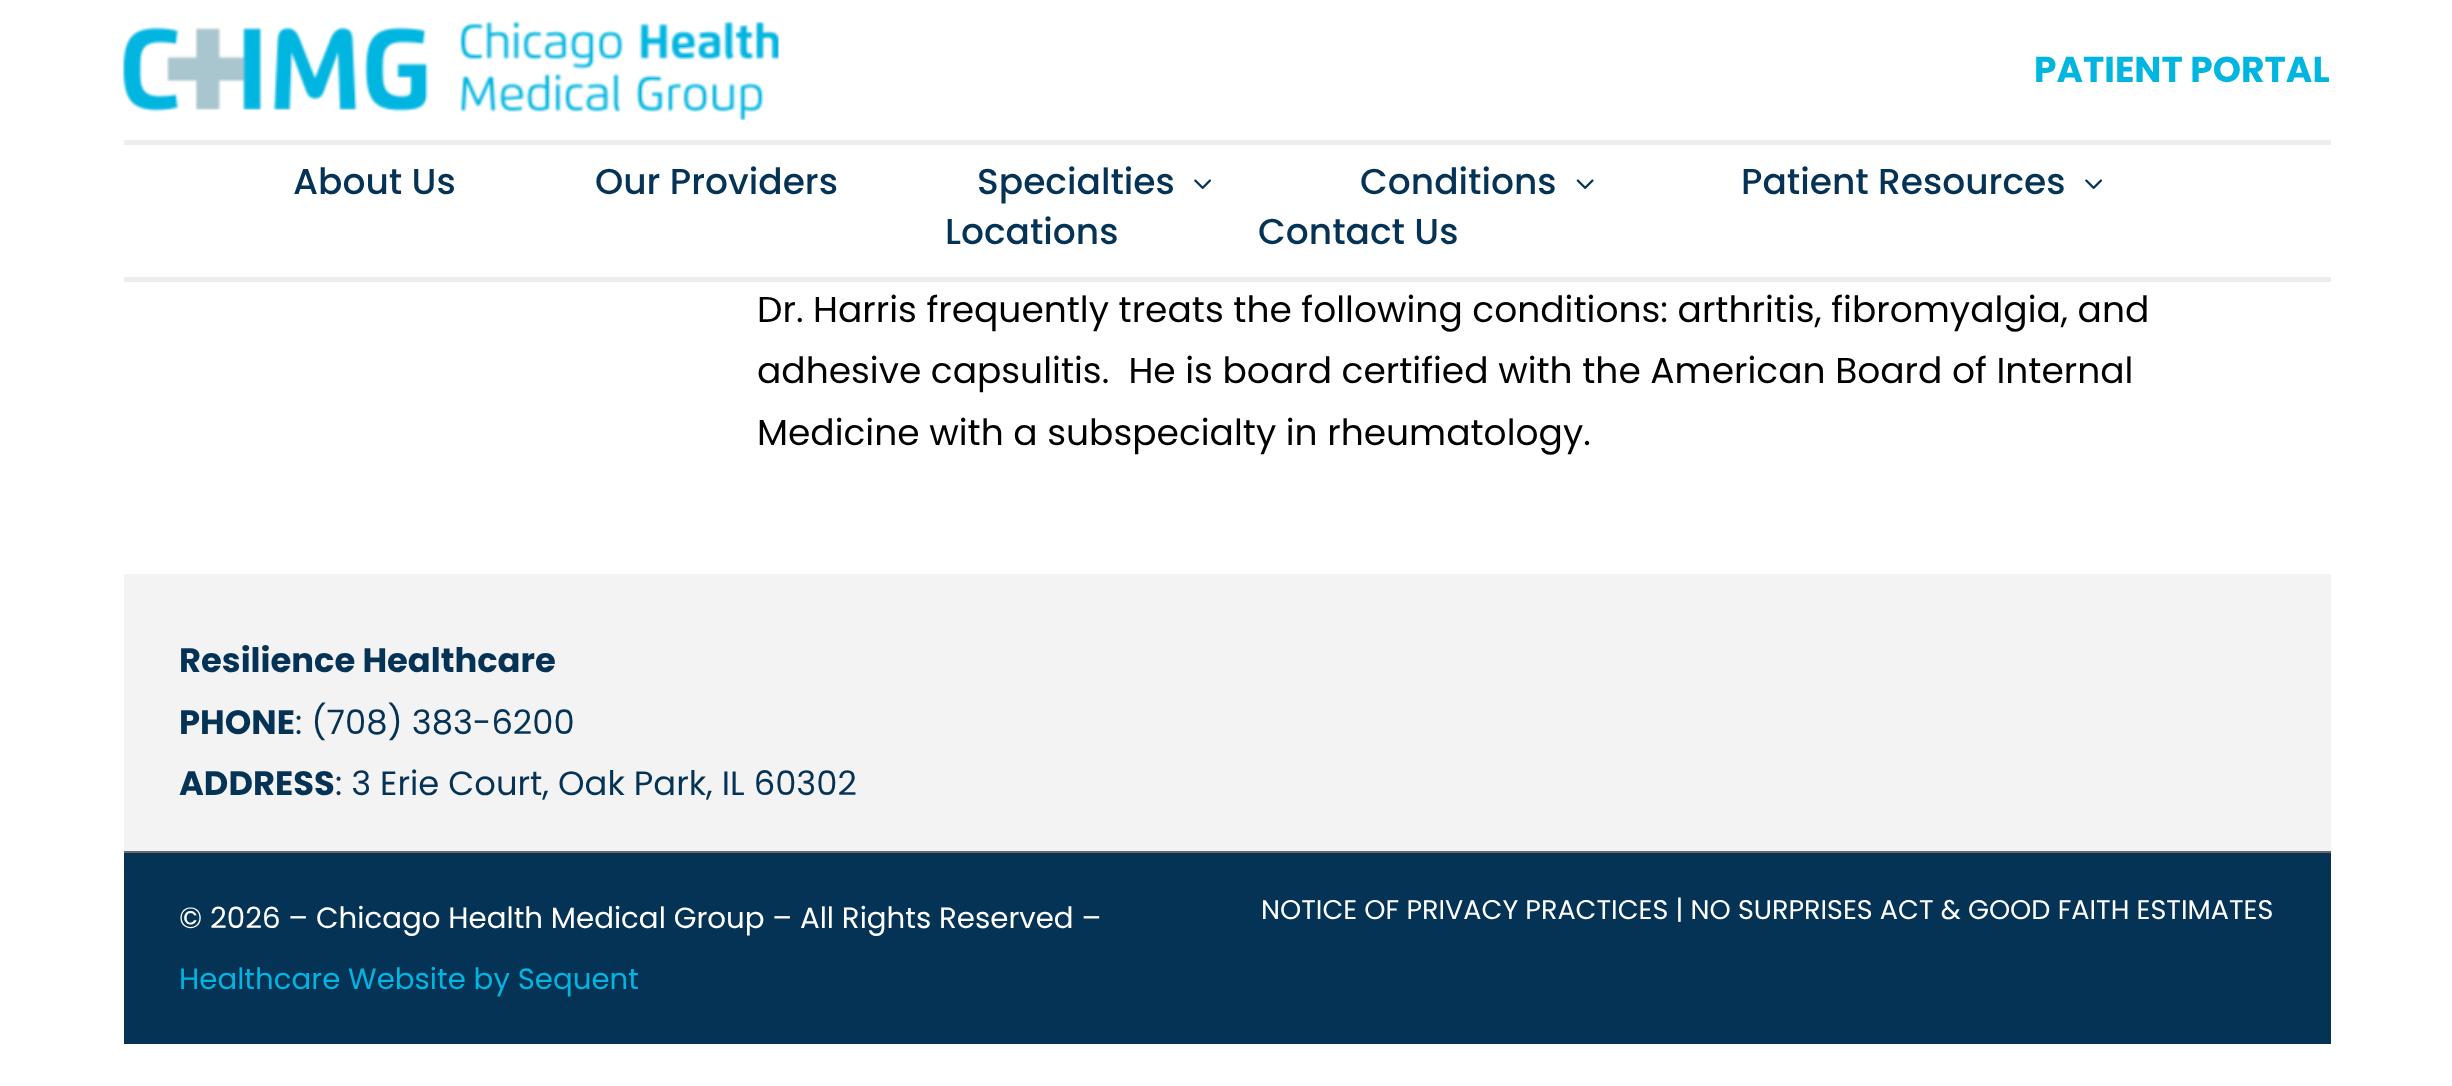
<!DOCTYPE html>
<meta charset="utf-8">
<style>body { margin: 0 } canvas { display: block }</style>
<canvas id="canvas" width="2452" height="1086"></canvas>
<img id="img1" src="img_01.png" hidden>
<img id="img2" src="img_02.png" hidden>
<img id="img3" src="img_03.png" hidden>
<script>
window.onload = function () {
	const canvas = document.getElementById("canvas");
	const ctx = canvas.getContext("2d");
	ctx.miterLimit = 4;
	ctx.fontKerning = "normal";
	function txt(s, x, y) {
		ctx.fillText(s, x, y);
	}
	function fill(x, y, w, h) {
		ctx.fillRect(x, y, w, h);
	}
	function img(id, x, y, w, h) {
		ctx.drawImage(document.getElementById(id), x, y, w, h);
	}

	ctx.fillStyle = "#FFFFFF";
	fill(0, 0, 2452, 1086);
	img("img1", 122, 21, 657, 99);
	ctx.fillStyle = "#EDEDED";
	fill(124, 140, 2207, 5);
	fill(124, 277, 2207, 5);
	img("img2", 1194, 179, 17, 10);
	img("img3", 1576, 179, 18, 10);
	img("img2", 2085, 179, 17, 10);
	ctx.fillStyle = "#F3F3F3";
	fill(124, 574, 2207, 277);
	ctx.fillStyle = "#686868";
	fill(124, 851, 2207, 2);
	ctx.fillStyle = "#053356";
	fill(124, 853, 2207, 191);
	ctx.font = "bold 36px Poppins";
	ctx.fillStyle = "#00B5E0";
	txt("PATIENT PORTAL", 2034, 82);
	ctx.font = "500 36px Poppins";
	ctx.fillStyle = "#053356";
	txt("About Us", 293, 194);
	txt("Our Providers", 595, 194);
	txt("Specialties", 977, 194);
	txt("Conditions", 1360, 194);
	txt("Patient Resources", 1741, 194);
	txt("Locations", 945, 244);
	txt("Contact Us", 1258, 244);
	ctx.font = "36px Poppins";
	ctx.fillStyle = "#000000";
	txt("Dr. Harris frequently treats the following conditions: arthritis, fibromyalgia, and", 757, 322);
	txt("adhesive capsulitis.  He is board certified with the American Board of Internal", 757, 383);
	txt("Medicine with a subspecialty in rheumatology.", 757, 445);
	ctx.font = "bold 33.75px Poppins";
	ctx.fillStyle = "#053356";
	txt("Resilience Healthcare", 179, 672);
	txt("PHONE", 179, 734);
	ctx.font = "33.75px Poppins";
	txt(": (708) 383-6200", 295, 734);
	ctx.font = "bold 33.75px Poppins";
	txt("ADDRESS", 179, 795);
	ctx.font = "33.75px Poppins";
	txt(": 3 Erie Court, Oak Park, IL 60302", 335, 795);
	ctx.font = "29.25px Poppins";
	ctx.fillStyle = "#FFFFFF";
	txt("© 2026 – Chicago Health Medical Group – All Rights Reserved –", 179, 928);
	ctx.fillStyle = "#00B5E0";
	txt("Healthcare Website by Sequent", 179, 989);
	ctx.font = "27px Poppins";
	ctx.fillStyle = "#FFFFFF";
	txt("NOTICE OF PRIVACY PRACTICES | NO SURPRISES ACT & GOOD FAITH ESTIMATES", 1261, 919);
};
</script>
